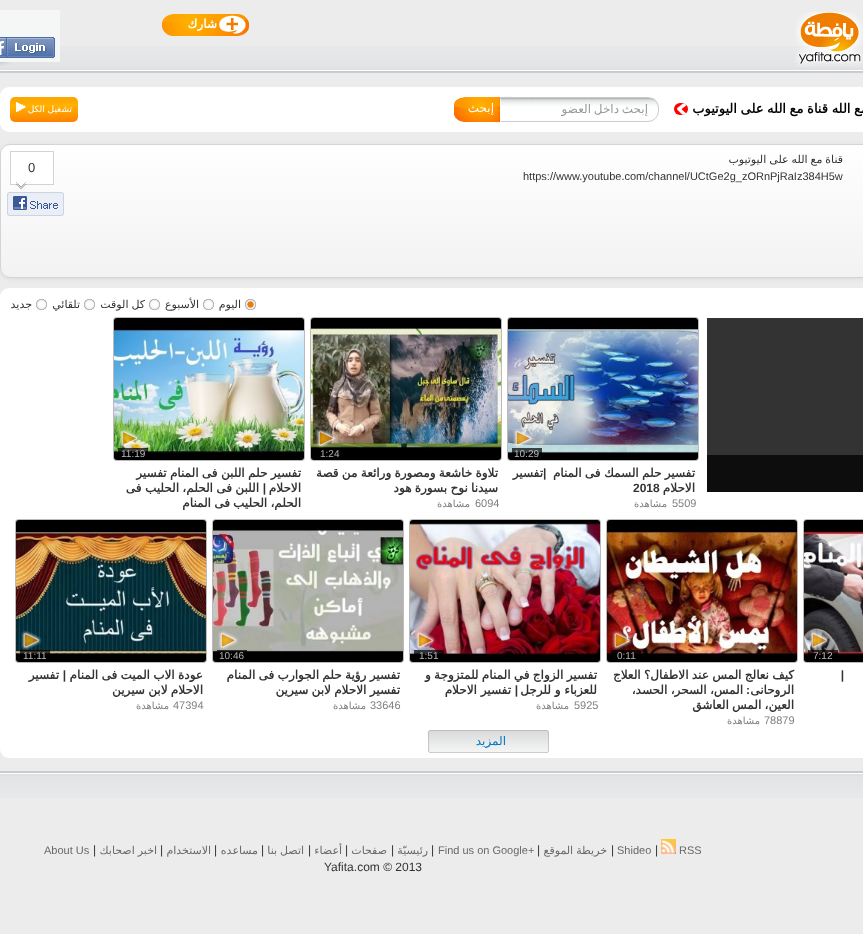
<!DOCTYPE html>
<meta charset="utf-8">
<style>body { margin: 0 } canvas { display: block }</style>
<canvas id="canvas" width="863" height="934"></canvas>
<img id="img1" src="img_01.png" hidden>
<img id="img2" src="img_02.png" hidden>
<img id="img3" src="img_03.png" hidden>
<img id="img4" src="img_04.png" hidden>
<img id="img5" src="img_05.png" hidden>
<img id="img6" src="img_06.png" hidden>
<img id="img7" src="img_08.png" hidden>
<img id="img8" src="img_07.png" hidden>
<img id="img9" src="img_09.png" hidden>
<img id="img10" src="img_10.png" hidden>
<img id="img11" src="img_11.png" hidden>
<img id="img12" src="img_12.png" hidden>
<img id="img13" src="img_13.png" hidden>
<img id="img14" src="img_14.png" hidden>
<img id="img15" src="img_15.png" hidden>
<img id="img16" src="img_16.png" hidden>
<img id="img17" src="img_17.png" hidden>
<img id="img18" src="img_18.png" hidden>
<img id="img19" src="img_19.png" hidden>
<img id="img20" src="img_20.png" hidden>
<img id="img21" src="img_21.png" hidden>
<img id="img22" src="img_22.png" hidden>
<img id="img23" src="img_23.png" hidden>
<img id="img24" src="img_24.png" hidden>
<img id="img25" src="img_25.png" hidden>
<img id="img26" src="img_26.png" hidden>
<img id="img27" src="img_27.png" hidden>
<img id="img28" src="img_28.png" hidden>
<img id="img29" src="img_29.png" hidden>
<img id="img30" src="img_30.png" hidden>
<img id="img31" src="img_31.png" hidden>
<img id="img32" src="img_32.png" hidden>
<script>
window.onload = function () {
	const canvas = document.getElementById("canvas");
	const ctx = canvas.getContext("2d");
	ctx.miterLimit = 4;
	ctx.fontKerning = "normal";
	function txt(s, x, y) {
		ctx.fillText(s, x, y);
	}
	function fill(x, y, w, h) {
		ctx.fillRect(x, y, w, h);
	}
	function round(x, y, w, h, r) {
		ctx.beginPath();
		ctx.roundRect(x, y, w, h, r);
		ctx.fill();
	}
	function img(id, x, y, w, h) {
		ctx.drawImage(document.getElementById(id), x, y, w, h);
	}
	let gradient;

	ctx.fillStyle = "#ECECED";
	fill(0, 0, 863, 934);
	img("img1", 0, 46, 863, 27);
	img("img2", 795, 12, 68, 55);
	img("img3", 162, 14, 87, 22);
	img("img4", 0, 10, 60, 56);
	img("img5", 0, 37, 55, 21);
	ctx.fillStyle = "#FFFFFF";
	round(0, 87, 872, 45, 9);
	ctx.fillStyle = "#FF0000";
	round(674, 103, 14, 12, 6);
	img("img6", 677, 103, 10, 12);
	img("img7", 501, 98, 158, 8);
	ctx.fillStyle = "rgba(0, 0, 0, 0.07)";
	ctx.beginPath();
	ctx.moveTo(501, 99);
	ctx.lineTo(648, 99);
	ctx.bezierCurveTo(654, 99, 658, 103, 658, 109);
	ctx.bezierCurveTo(658, 92, 632, 98, 624, 98);
	ctx.lineTo(526, 98);
	ctx.bezierCurveTo(518, 98, 498, 93, 498, 102);
	ctx.bezierCurveTo(498, 100, 499, 99, 501, 99);
	ctx.closePath();
	ctx.fill();
	ctx.beginPath();
	ctx.roundRect(497.5, 97.5, 161, 24, [3.5, 10.5, 10.5, 3.5]);
	ctx.strokeStyle = "#CCCCCC";
	ctx.stroke();
	img("img8", 454, 97, 47, 25);
	img("img9", 10, 97, 68, 25);
	img("img10", 16, 102, 10, 10);
	ctx.filter = "blur(2px)";
	ctx.beginPath();
	ctx.roundRect(0, 145, 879, 134, 10);
	ctx.fill();
	ctx.filter = "none";
	ctx.save();
	ctx.beginPath();
	ctx.roundRect(0, 144, 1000, 134, 10);
	ctx.clip();
	gradient = ctx.createLinearGradient(500, 145, 500, 277);
	gradient.addColorStop(0, "#FFFFFF");
	gradient.addColorStop(1, "#F2F2F2");
	ctx.fillStyle = gradient;
	fill(0, 145, 863, 132);
	ctx.restore();
	ctx.beginPath();
	ctx.roundRect(0.5, 144.5, 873, 133, 9.5);
	ctx.strokeStyle = "#D4D4D4";
	ctx.stroke();
	img("img11", 7, 151, 57, 65);
	ctx.fillStyle = "#FFFFFF";
	round(0, 288, 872, 470, 9);
	img("img12", 245, 299, 11, 11);
	img("img13", 203, 299, 11, 11);
	img("img13", 149, 299, 11, 11);
	img("img13", 84, 299, 11, 11);
	img("img13", 36, 299, 11, 11);
	ctx.fillStyle = "#333333";
	fill(707, 318, 156, 137);
	ctx.fillStyle = "#0D0D0D";
	fill(707, 455, 156, 37);
	ctx.fillStyle = "#BBBBBB";
	ctx.filter = "blur(0.5px)";
	ctx.beginPath();
	ctx.roundRect(507, 317, 192, 144, 4);
	ctx.fill();
	ctx.filter = "none";
	img("img14", 508, 318, 190, 142);
	img("img15", 513, 429, 20, 19);
	ctx.fillStyle = "rgba(0, 0, 0, 0.7)";
	fill(512, 448, 30, 6);
	ctx.fillStyle = "#BBBBBB";
	ctx.filter = "blur(0.5px)";
	ctx.beginPath();
	ctx.roundRect(310, 317, 192, 144, 4);
	ctx.fill();
	ctx.filter = "none";
	img("img16", 311, 318, 190, 142);
	img("img17", 316, 428, 21, 21);
	ctx.fillStyle = "rgba(0, 0, 0, 0.7)";
	fill(315, 448, 9, 1);
	ctx.fillStyle = "#BBBBBB";
	ctx.filter = "blur(0.5px)";
	ctx.beginPath();
	ctx.roundRect(113, 317, 192, 144, 4);
	ctx.fill();
	ctx.filter = "none";
	img("img18", 114, 318, 190, 142);
	img("img19", 119, 428, 21, 21);
	ctx.fillStyle = "rgba(0, 0, 0, 0.7)";
	fill(118, 448, 30, 7);
	ctx.fillStyle = "#BBBBBB";
	ctx.filter = "blur(0.5px)";
	ctx.beginPath();
	ctx.roundRect(803, 519, 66, 144, 4);
	ctx.fill();
	ctx.filter = "none";
	img("img20", 804, 520, 59, 142);
	img("img21", 809, 631, 21, 20);
	ctx.fillStyle = "rgba(0, 0, 0, 0.7)";
	fill(808, 650, 30, 6);
	ctx.fillStyle = "#BBBBBB";
	ctx.filter = "blur(0.5px)";
	ctx.beginPath();
	ctx.roundRect(606, 519, 192, 144, 4);
	ctx.fill();
	ctx.filter = "none";
	img("img22", 607, 520, 190, 142);
	img("img23", 612, 630, 21, 21);
	ctx.fillStyle = "rgba(0, 0, 0, 0.7)";
	fill(611, 650, 30, 7);
	ctx.fillStyle = "#BBBBBB";
	ctx.filter = "blur(0.5px)";
	ctx.beginPath();
	ctx.roundRect(409, 519, 192, 144, 4);
	ctx.fill();
	ctx.filter = "none";
	img("img24", 410, 520, 190, 142);
	img("img25", 415, 631, 21, 19);
	ctx.fillStyle = "rgba(0, 0, 0, 0.7)";
	fill(414, 650, 30, 6);
	ctx.fillStyle = "#BBBBBB";
	ctx.filter = "blur(0.5px)";
	ctx.beginPath();
	ctx.roundRect(212, 519, 192, 144, 4);
	ctx.fill();
	ctx.filter = "none";
	img("img26", 213, 520, 190, 142);
	img("img27", 218, 631, 21, 19);
	ctx.fillStyle = "rgba(0, 0, 0, 0.7)";
	fill(217, 650, 30, 2);
	ctx.fillStyle = "#BBBBBB";
	ctx.filter = "blur(0.5px)";
	ctx.beginPath();
	ctx.roundRect(15, 519, 192, 144, 4);
	ctx.fill();
	ctx.filter = "none";
	img("img28", 16, 520, 190, 142);
	img("img29", 21, 630, 21, 21);
	ctx.fillStyle = "rgba(0, 0, 0, 0.7)";
	fill(20, 650, 30, 5);
	img("img30", 428, 730, 121, 23);
	img("img31", 0, 771, 863, 27);
	img("img32", 661, 839, 15, 15);
	ctx.direction = "rtl";
	ctx.font = "bold 12px DejaVu Sans";
	ctx.fillStyle = "#FFFFFF";
	txt("شارك", 217, 28);
	ctx.wordSpacing = "-0.5px";
	ctx.font = "bold 13px DejaVu Sans";
	ctx.fillStyle = "#000000";
	txt("مع الله قناة مع الله على اليوتيوب", 868, 113);
	ctx.save();
	ctx.beginPath();
	ctx.rect(498, 102, 150, 15);
	ctx.clip();
	ctx.wordSpacing = "-1px";
	ctx.font = "12px DejaVu Sans";
	ctx.fillStyle = "#999999";
	txt("إبحث داخل العضو", 648, 113);
	ctx.restore();
	ctx.wordSpacing = "0px";
	ctx.font = "12px DejaVu Sans";
	ctx.fillStyle = "#FFFFFF";
	txt("إبحث", 494, 112);
	ctx.font = "9px DejaVu Sans";
	txt("تشغيل الكل", 72, 112);
	ctx.save();
	ctx.beginPath();
	ctx.rect(453, 151, 390, 87);
	ctx.clip();
	ctx.wordSpacing = "-0.5px";
	ctx.font = "11px DejaVu Sans";
	ctx.fillStyle = "#333333";
	txt("قناة مع الله على اليوتيوب", 843, 163);
	ctx.restore();
	ctx.direction = "ltr";
	ctx.font = "11px Liberation Sans";
	ctx.fillStyle = "#333333";
	txt("https://www.youtube.com/channel/UCtGe2g_zORnPjRaIz384H5w", 523, 180);
	ctx.font = "13px Liberation Sans";
	txt("0", 28, 172);
	ctx.direction = "rtl";
	ctx.font = "11px DejaVu Sans";
	txt("اليوم", 241, 308);
	txt("الأسبوع", 199, 308);
	ctx.wordSpacing = "-0.5px";
	txt("كل الوقت", 145, 308);
	ctx.wordSpacing = "0px";
	txt("تلقائي", 80, 308);
	txt("جديد", 32, 308);
	ctx.direction = "ltr";
	ctx.font = "10px Liberation Sans";
	ctx.fillStyle = "#B8B9B9";
	txt("10:29", 514, 457);
	ctx.wordSpacing = "-0.5px";
	ctx.direction = "rtl";
	ctx.font = "bold 12px DejaVu Sans";
	ctx.fillStyle = "#333333";
	txt("تفسير حلم السمك فى المنام", 695, 477);
	ctx.wordSpacing = "0px";
	ctx.direction = "ltr";
	ctx.font = "bold 12px Liberation Sans";
	txt("|", 543, 477);
	ctx.direction = "rtl";
	ctx.font = "bold 12px DejaVu Sans";
	txt("تفسير", 543, 477);
	txt("الاحلام", 695, 492);
	ctx.direction = "ltr";
	ctx.font = "bold 12px Liberation Sans";
	txt("2018", 633, 492);
	ctx.font = "11px Liberation Sans";
	ctx.fillStyle = "#808080";
	txt("5509", 672, 507);
	ctx.direction = "rtl";
	ctx.font = "10px DejaVu Sans";
	txt("مشاهدة", 667, 507);
	ctx.direction = "ltr";
	ctx.font = "10px Liberation Sans";
	ctx.fillStyle = "#B3B3B3";
	txt("1:24", 320, 457);
	ctx.wordSpacing = "-0.5px";
	ctx.direction = "rtl";
	ctx.font = "bold 12px DejaVu Sans";
	ctx.fillStyle = "#333333";
	txt("تلاوة خاشعة ومصورة ورائعة من قصة", 498, 477);
	txt("سيدنا نوح بسورة هود", 498, 492);
	ctx.wordSpacing = "0px";
	ctx.direction = "ltr";
	ctx.font = "11px Liberation Sans";
	ctx.fillStyle = "#808080";
	txt("6094", 475, 507);
	ctx.direction = "rtl";
	ctx.font = "10px DejaVu Sans";
	txt("مشاهدة", 470, 507);
	ctx.direction = "ltr";
	ctx.font = "10px Liberation Sans";
	ctx.fillStyle = "#B8B9B9";
	txt("11:19", 121, 457);
	ctx.wordSpacing = "-0.5px";
	ctx.direction = "rtl";
	ctx.font = "bold 12px DejaVu Sans";
	ctx.fillStyle = "#333333";
	txt("تفسير حلم اللبن فى المنام تفسير", 301, 477);
	ctx.wordSpacing = "0px";
	txt("الاحلام", 301, 492);
	ctx.font = "bold 12px Liberation Sans";
	txt("|", 266, 492);
	ctx.wordSpacing = "-0.5px";
	ctx.font = "bold 12px DejaVu Sans";
	txt("اللبن فى الحلم، الحليب فى", 259, 492);
	txt("الحلم، الحليب", 301, 507);
	txt("فى المنام", 230, 507);
	ctx.wordSpacing = "0px";
	ctx.direction = "ltr";
	ctx.font = "10px Liberation Sans";
	ctx.fillStyle = "#B8B9B9";
	txt("7:12", 813, 659);
	ctx.direction = "rtl";
	ctx.font = "bold 12px Liberation Sans";
	ctx.fillStyle = "#333333";
	txt("|", 844, 679);
	ctx.direction = "ltr";
	ctx.font = "10px Liberation Sans";
	ctx.fillStyle = "#B3B3B3";
	txt("0:11", 617, 659);
	ctx.wordSpacing = "-0.5px";
	ctx.direction = "rtl";
	ctx.font = "bold 12px DejaVu Sans";
	ctx.fillStyle = "#333333";
	txt("كيف نعالج المس عند الاطفال؟ العلاج", 794, 679);
	ctx.wordSpacing = "0px";
	txt("الروحانى", 794, 694);
	ctx.font = "bold 12px Liberation Sans";
	txt(":", 750, 694);
	ctx.wordSpacing = "-0.5px";
	ctx.font = "bold 12px DejaVu Sans";
	txt("المس، السحر، الحسد،", 743, 694);
	txt("العين، المس العاشق", 794, 709);
	ctx.wordSpacing = "0px";
	ctx.direction = "ltr";
	ctx.font = "11px Liberation Sans";
	ctx.fillStyle = "#808080";
	txt("78879", 764, 724);
	ctx.direction = "rtl";
	ctx.font = "10px DejaVu Sans";
	txt("مشاهدة", 760, 724);
	ctx.direction = "ltr";
	ctx.font = "10px Liberation Sans";
	ctx.fillStyle = "#B8B9B9";
	txt("1:51", 419, 659);
	ctx.wordSpacing = "-0.5px";
	ctx.direction = "rtl";
	ctx.font = "bold 12px DejaVu Sans";
	ctx.fillStyle = "#333333";
	txt("تفسير الزواج في المنام للمتزوجة و", 597, 679);
	ctx.wordSpacing = "0px";
	txt("للعزباء و للرجل", 597, 694);
	ctx.font = "bold 12px Liberation Sans";
	txt("|", 518, 694);
	ctx.font = "bold 12px DejaVu Sans";
	txt("تفسير الاحلام", 511, 694);
	ctx.direction = "ltr";
	ctx.font = "11px Liberation Sans";
	ctx.fillStyle = "#808080";
	txt("5925", 574, 709);
	ctx.direction = "rtl";
	ctx.font = "10px DejaVu Sans";
	txt("مشاهدة", 569, 709);
	ctx.direction = "ltr";
	ctx.font = "10px Liberation Sans";
	ctx.fillStyle = "#B3B3B3";
	txt("10:46", 219, 659);
	ctx.wordSpacing = "-0.5px";
	ctx.direction = "rtl";
	ctx.font = "bold 12px DejaVu Sans";
	ctx.fillStyle = "#333333";
	txt("تفسير رؤية حلم الجوارب فى المنام", 400, 679);
	txt("تفسير الاحلام لابن سيرين", 400, 694);
	ctx.wordSpacing = "0px";
	ctx.direction = "ltr";
	ctx.font = "11px Liberation Sans";
	ctx.fillStyle = "#808080";
	txt("33646", 370, 709);
	ctx.direction = "rtl";
	ctx.font = "10px DejaVu Sans";
	txt("مشاهدة", 366, 709);
	ctx.direction = "ltr";
	ctx.font = "10px Liberation Sans";
	ctx.fillStyle = "#B8B9B9";
	txt("11:11", 23, 659);
	ctx.wordSpacing = "-0.5px";
	ctx.direction = "rtl";
	ctx.font = "bold 12px DejaVu Sans";
	ctx.fillStyle = "#333333";
	txt("عودة الاب الميت فى المنام", 203, 679);
	ctx.wordSpacing = "0px";
	ctx.font = "bold 12px Liberation Sans";
	txt("|", 66, 679);
	ctx.font = "bold 12px DejaVu Sans";
	txt("تفسير", 59, 679);
	ctx.wordSpacing = "-0.5px";
	txt("الاحلام لابن سيرين", 203, 694);
	ctx.wordSpacing = "0px";
	ctx.direction = "ltr";
	ctx.font = "11px Liberation Sans";
	ctx.fillStyle = "#808080";
	txt("47394", 173, 709);
	ctx.direction = "rtl";
	ctx.font = "10px DejaVu Sans";
	txt("مشاهدة", 169, 709);
	ctx.font = "12px DejaVu Sans";
	ctx.fillStyle = "#0079C0";
	txt("المزيد", 506, 745);
	ctx.direction = "ltr";
	ctx.font = "11px Liberation Sans";
	ctx.fillStyle = "#696969";
	txt("RSS", 679, 854);
	ctx.font = "12px Liberation Sans";
	ctx.fillStyle = "#333333";
	txt("|", 655, 854);
	ctx.font = "11px Liberation Sans";
	ctx.fillStyle = "#696969";
	txt("Shideo", 617, 854);
	ctx.font = "12px Liberation Sans";
	ctx.fillStyle = "#333333";
	txt("|", 611, 854);
	ctx.wordSpacing = "-0.5px";
	ctx.direction = "rtl";
	ctx.font = "11px DejaVu Sans";
	ctx.fillStyle = "#696969";
	txt("خريطة الموقع", 607, 854);
	ctx.wordSpacing = "0px";
	ctx.direction = "ltr";
	ctx.font = "12px Liberation Sans";
	ctx.fillStyle = "#333333";
	txt("|", 537, 854);
	ctx.font = "11px Liberation Sans";
	ctx.fillStyle = "#696969";
	txt("Find us on Google+", 438, 854);
	ctx.font = "12px Liberation Sans";
	ctx.fillStyle = "#333333";
	txt("|", 431, 854);
	ctx.direction = "rtl";
	ctx.font = "11px DejaVu Sans";
	ctx.fillStyle = "#696969";
	txt("رئيسيّة", 428, 854);
	ctx.direction = "ltr";
	ctx.font = "12px Liberation Sans";
	ctx.fillStyle = "#333333";
	txt("|", 391, 854);
	ctx.direction = "rtl";
	ctx.font = "11px DejaVu Sans";
	ctx.fillStyle = "#696969";
	txt("صفحات", 387, 854);
	ctx.direction = "ltr";
	ctx.font = "12px Liberation Sans";
	ctx.fillStyle = "#333333";
	txt("|", 345, 854);
	ctx.direction = "rtl";
	ctx.font = "11px DejaVu Sans";
	ctx.fillStyle = "#696969";
	txt("أعضاء", 342, 854);
	ctx.direction = "ltr";
	ctx.font = "12px Liberation Sans";
	ctx.fillStyle = "#333333";
	txt("|", 308, 854);
	ctx.wordSpacing = "-0.5px";
	ctx.direction = "rtl";
	ctx.font = "11px DejaVu Sans";
	ctx.fillStyle = "#696969";
	txt("اتصل بنا", 304, 854);
	ctx.wordSpacing = "0px";
	ctx.direction = "ltr";
	ctx.font = "12px Liberation Sans";
	ctx.fillStyle = "#333333";
	txt("|", 261, 854);
	ctx.direction = "rtl";
	ctx.font = "11px DejaVu Sans";
	ctx.fillStyle = "#696969";
	txt("مساعده", 258, 854);
	ctx.direction = "ltr";
	ctx.font = "12px Liberation Sans";
	ctx.fillStyle = "#333333";
	txt("|", 214, 854);
	ctx.direction = "rtl";
	ctx.font = "11px DejaVu Sans";
	ctx.fillStyle = "#696969";
	txt("الاستخدام", 211, 854);
	ctx.direction = "ltr";
	ctx.font = "12px Liberation Sans";
	ctx.fillStyle = "#333333";
	txt("|", 160, 854);
	ctx.wordSpacing = "-0.5px";
	ctx.direction = "rtl";
	ctx.font = "11px DejaVu Sans";
	ctx.fillStyle = "#696969";
	txt("اخبر اصحابك", 157, 854);
	ctx.wordSpacing = "0px";
	ctx.direction = "ltr";
	ctx.font = "12px Liberation Sans";
	ctx.fillStyle = "#333333";
	txt("|", 93, 854);
	ctx.font = "11px Liberation Sans";
	ctx.fillStyle = "#696969";
	txt("About Us", 44, 854);
	ctx.font = "12px Liberation Sans";
	ctx.fillStyle = "#333333";
	txt("Yafita.com © 2013", 324, 871);
};
</script>
